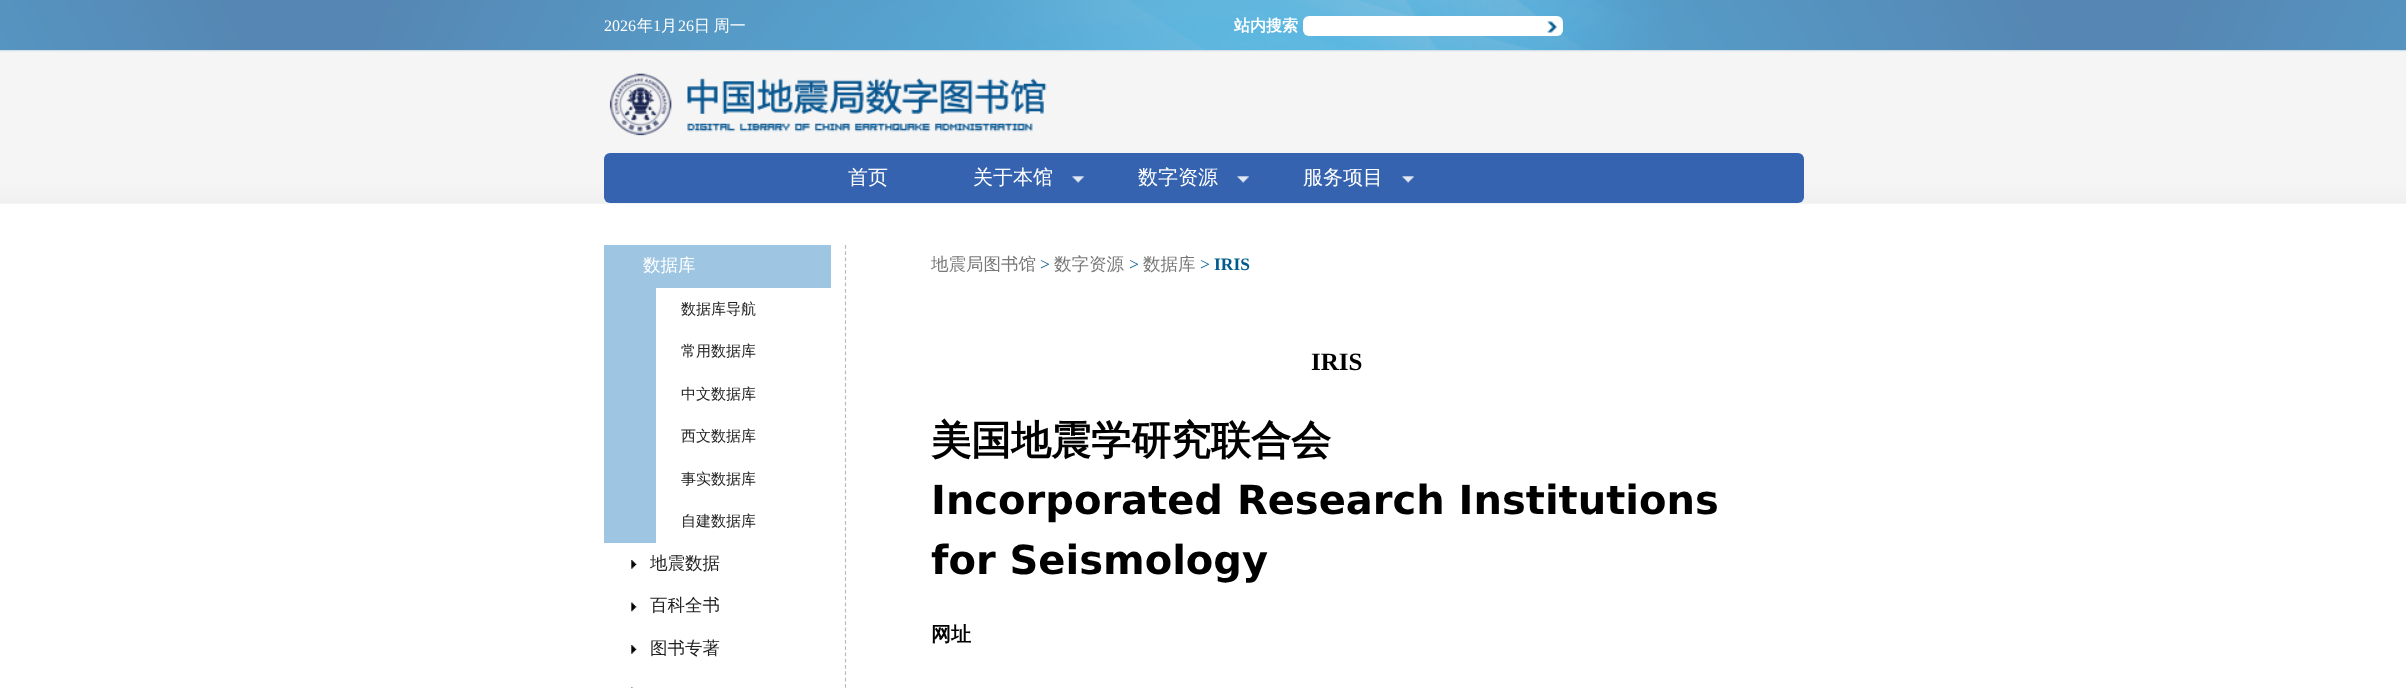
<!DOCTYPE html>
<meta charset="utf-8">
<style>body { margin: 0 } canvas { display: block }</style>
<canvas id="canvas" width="2406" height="688"></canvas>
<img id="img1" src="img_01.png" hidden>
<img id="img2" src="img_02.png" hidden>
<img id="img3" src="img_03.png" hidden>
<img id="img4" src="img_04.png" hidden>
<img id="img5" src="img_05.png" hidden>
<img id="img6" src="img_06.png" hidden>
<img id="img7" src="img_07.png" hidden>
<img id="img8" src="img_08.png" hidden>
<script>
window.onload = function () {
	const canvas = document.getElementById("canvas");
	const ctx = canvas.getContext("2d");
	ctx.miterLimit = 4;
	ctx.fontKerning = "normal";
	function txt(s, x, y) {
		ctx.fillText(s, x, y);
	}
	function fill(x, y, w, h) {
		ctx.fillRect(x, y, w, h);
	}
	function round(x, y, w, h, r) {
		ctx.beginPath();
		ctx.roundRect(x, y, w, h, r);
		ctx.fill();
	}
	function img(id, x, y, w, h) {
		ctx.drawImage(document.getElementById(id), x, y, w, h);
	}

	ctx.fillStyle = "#FFFFFF";
	fill(0, 0, 2406, 688);
	img("img1", 0, 0, 2406, 50);
	round(1303, 16, 260, 20, 6);
	img("img2", 1547, 21, 11, 12);
	img("img3", 0, 50, 2406, 154);
	img("img4", 609, 73, 438, 63);
	ctx.fillStyle = "#3563AF";
	round(604, 153, 1200, 50, 6);
	img("img5", 1072, 176, 12, 7);
	img("img5", 1237, 176, 12, 7);
	img("img5", 1402, 176, 12, 7);
	ctx.beginPath();
	ctx.moveTo(845.5, 245);
	ctx.lineTo(845.5, 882.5);
	ctx.strokeStyle = "#B4BDC4";
	ctx.lineWidth = 1.2;
	ctx.setLineDash([3.75, 2.52]);
	ctx.stroke();
	ctx.fillStyle = "#9EC6E2";
	fill(604, 245, 227, 298);
	ctx.fillStyle = "#FFFFFF";
	fill(656, 288, 175, 255);
	img("img6", 631, 560, 6, 9);
	img("img7", 631, 602, 6, 10);
	img("img6", 631, 645, 6, 9);
	img("img8", 631, 687, 2, 1);
	ctx.font = "16px Liberation Serif";
	txt("2026", 604, 31);
	ctx.font = "500 16px WenQuanYi Zen Hei";
	txt("年", 637, 31);
	ctx.font = "16px Liberation Serif";
	txt("1", 653, 31);
	ctx.font = "500 16px WenQuanYi Zen Hei";
	txt("月", 661, 31);
	ctx.font = "16px Liberation Serif";
	txt("26", 678, 31);
	ctx.wordSpacing = "-1px";
	ctx.font = "500 16px WenQuanYi Zen Hei";
	txt("日 周一", 694, 31);
	ctx.wordSpacing = "0px";
	ctx.font = "bold 16px WenQuanYi Zen Hei";
	txt("站内搜索", 1234, 31);
	ctx.font = "500 20px WenQuanYi Zen Hei";
	txt("首页", 848, 184);
	txt("关于本馆", 973, 184);
	txt("数字资源", 1138, 184);
	txt("服务项目", 1303, 184);
	ctx.font = "500 17.5px WenQuanYi Zen Hei";
	txt("数据库", 643, 271);
	ctx.font = "500 15px WenQuanYi Zen Hei";
	ctx.fillStyle = "#222222";
	txt("数据库导航", 681, 314);
	txt("常用数据库", 681, 356);
	txt("中文数据库", 681, 399);
	txt("西文数据库", 681, 441);
	txt("事实数据库", 681, 484);
	txt("自建数据库", 681, 526);
	ctx.font = "500 17.5px WenQuanYi Zen Hei";
	txt("地震数据", 650, 569);
	txt("百科全书", 650, 611);
	txt("图书专著", 650, 654);
	ctx.fillStyle = "#787878";
	txt("地震局图书馆", 931, 270);
	ctx.font = "17.5px Liberation Serif";
	ctx.fillStyle = "#005A8C";
	txt(">", 1040, 270);
	ctx.font = "500 17.5px WenQuanYi Zen Hei";
	ctx.fillStyle = "#787878";
	txt("数字资源", 1054, 270);
	ctx.font = "17.5px Liberation Serif";
	ctx.fillStyle = "#005A8C";
	txt(">", 1129, 270);
	ctx.font = "500 17.5px WenQuanYi Zen Hei";
	ctx.fillStyle = "#787878";
	txt("数据库", 1143, 270);
	ctx.font = "17.5px Liberation Serif";
	ctx.fillStyle = "#005A8C";
	txt(">", 1200, 270);
	ctx.font = "bold 17.5px Liberation Serif";
	txt("IRIS", 1214, 270);
	ctx.font = "bold 25px Liberation Serif";
	ctx.fillStyle = "#000000";
	txt("IRIS", 1311, 370);
	ctx.font = "bold 40px WenQuanYi Zen Hei";
	txt("美国地震学研究联合会", 931, 454);
	ctx.font = "bold 40px DejaVu Sans";
	txt("Incorporated Research Institutions", 931, 514);
	txt("for Seismology", 931, 574);
	ctx.font = "bold 20px WenQuanYi Zen Hei";
	txt("网址", 931, 641);
};
</script>
